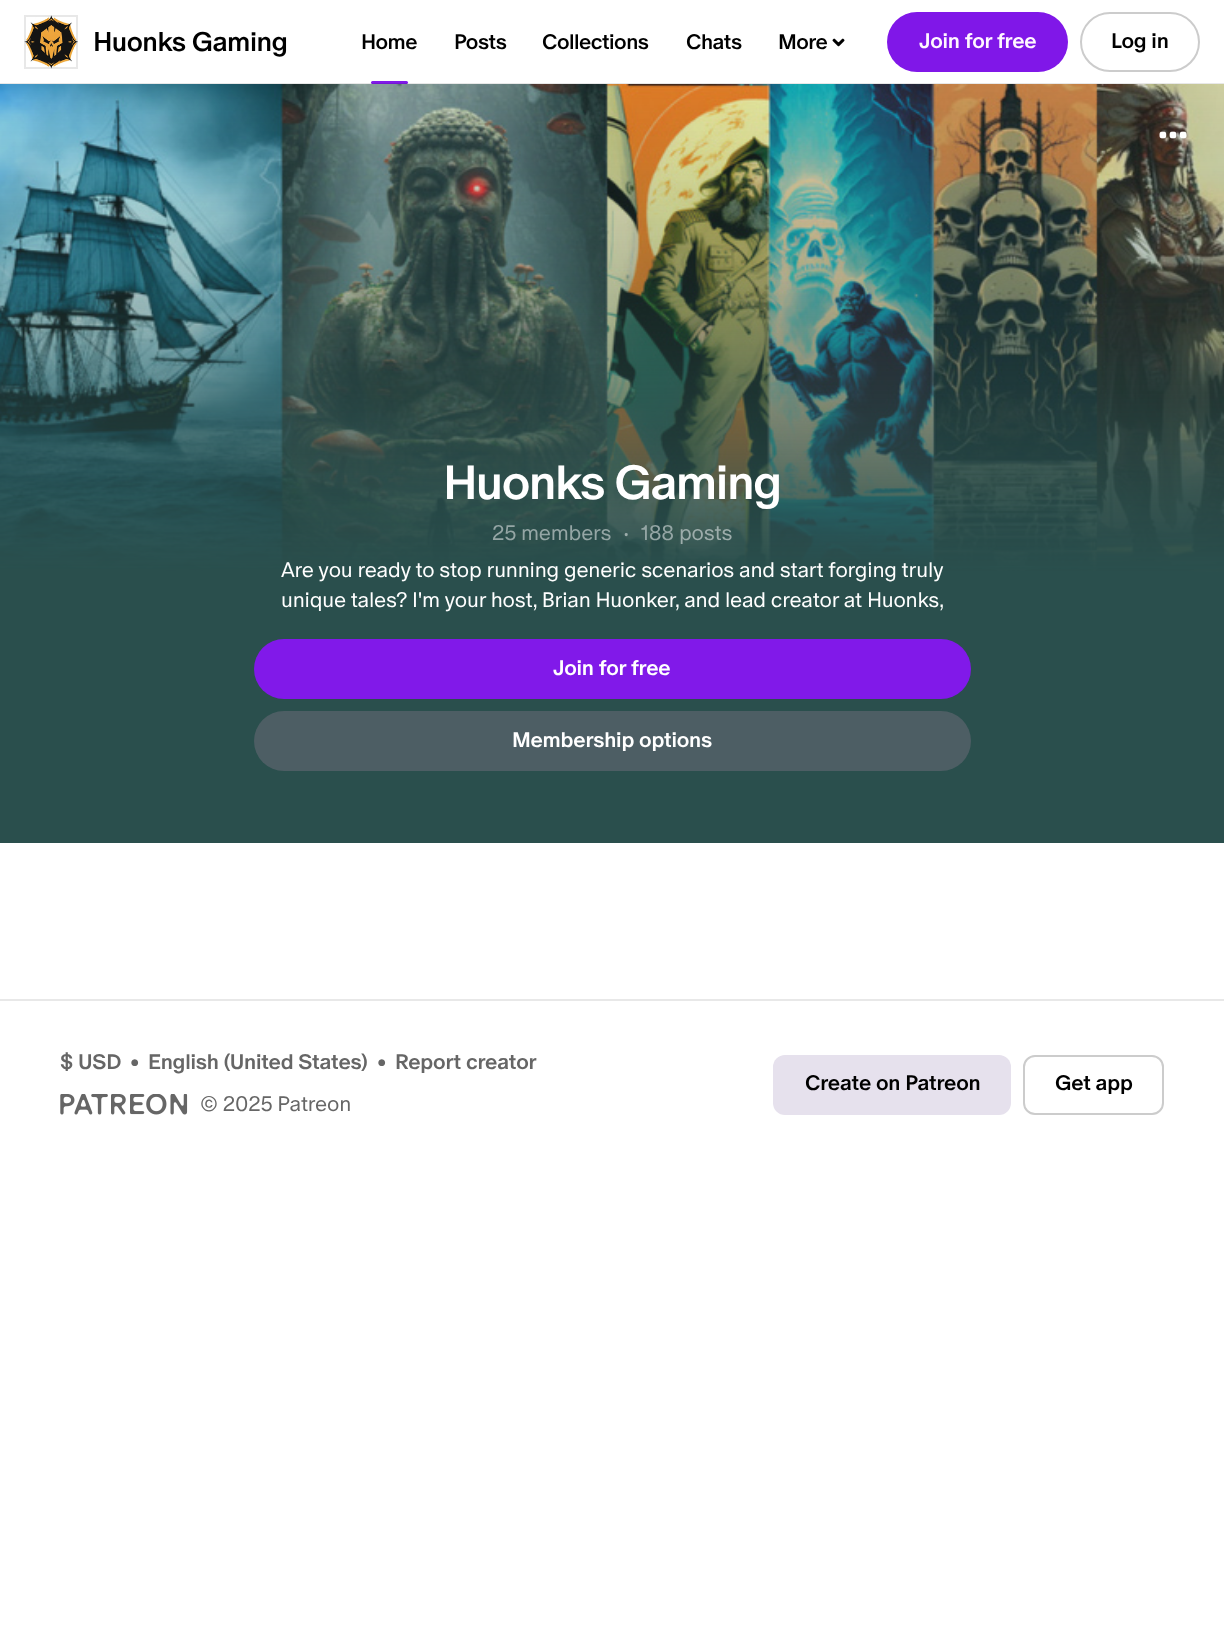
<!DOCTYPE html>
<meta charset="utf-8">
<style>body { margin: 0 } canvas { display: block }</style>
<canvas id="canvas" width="1224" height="1628"></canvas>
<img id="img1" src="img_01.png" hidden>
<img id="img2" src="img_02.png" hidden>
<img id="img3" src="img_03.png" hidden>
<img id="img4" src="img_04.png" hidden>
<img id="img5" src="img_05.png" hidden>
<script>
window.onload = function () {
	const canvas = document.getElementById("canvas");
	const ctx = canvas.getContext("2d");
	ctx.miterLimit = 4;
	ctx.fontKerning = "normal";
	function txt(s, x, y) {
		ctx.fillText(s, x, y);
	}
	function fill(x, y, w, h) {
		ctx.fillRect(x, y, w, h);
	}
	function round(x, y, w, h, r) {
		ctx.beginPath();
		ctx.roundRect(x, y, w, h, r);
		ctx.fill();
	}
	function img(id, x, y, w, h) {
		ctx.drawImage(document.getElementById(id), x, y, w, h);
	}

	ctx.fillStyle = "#FFFFFF";
	fill(0, 0, 1224, 1628);
	img("img1", 24, 15, 54, 54);
	ctx.strokeStyle = "rgba(0, 0, 0, 0.09)";
	ctx.lineWidth = 2;
	ctx.strokeRect(25, 16, 52, 52);
	ctx.fillStyle = "#8119E9";
	round(371, 81, 37, 3, 1.5);
	img("img2", 832, 38, 13, 9);
	ctx.fillStyle = "#8017E8";
	round(887, 12, 181, 60, 30);
	ctx.beginPath();
	ctx.roundRect(1081, 13, 118, 58, 29);
	ctx.strokeStyle = "#CCCCCC";
	ctx.stroke();
	ctx.fillStyle = "rgba(0, 0, 0, 0.09)";
	fill(0, 83, 1224, 1);
	ctx.fillStyle = "#2A4F4D";
	fill(0, 573, 1224, 270);
	img("img3", 0, 84, 1224, 489);
	img("img4", 1159, 131, 28, 8);
	ctx.fillStyle = "#8119E9";
	round(254, 639, 717, 60, 30);
	ctx.fillStyle = "#4D5E64";
	round(254, 711, 717, 60, 30);
	ctx.fillStyle = "#E8E8E8";
	fill(0, 999, 1224, 2);
	img("img5", 60, 1094, 128, 21);
	ctx.fillStyle = "#E6E1ED";
	round(773, 1055, 238, 60, 12);
	ctx.beginPath();
	ctx.roundRect(1024, 1056, 139, 58, 11);
	ctx.stroke();
	ctx.letterSpacing = "-0.5px";
	ctx.font = "500 27px 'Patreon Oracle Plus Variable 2'";
	ctx.fillStyle = "#000000";
	txt("Huonks Gaming", 93, 51);
	ctx.font = "500 21px 'Patreon Oracle Plus Variable 2'";
	txt("Home", 361, 49);
	txt("Posts", 454, 49);
	txt("Collections", 542, 49);
	txt("Chats", 686, 49);
	txt("More", 778, 49);
	ctx.letterSpacing = "-0.2px";
	ctx.font = "500 21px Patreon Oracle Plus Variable";
	ctx.fillStyle = "#FFF7FF";
	txt("Join for free", 919, 48);
	ctx.fillStyle = "#000000";
	txt("Log in", 1111, 48);
	ctx.letterSpacing = "-1.5px";
	ctx.font = "500 48px 'Patreon Oracle Plus Variable 2'";
	ctx.fillStyle = "#FFFFFF";
	txt("Huonks Gaming", 443, 499);
	ctx.letterSpacing = "-0.2px";
	ctx.font = "300 21px Patreon Oracle Plus Variable";
	ctx.fillStyle = "#95A6A5";
	txt("25", 492, 540);
	txt("members", 521, 540);
	ctx.letterSpacing = "0px";
	ctx.font = "24px Noto Sans";
	ctx.fillStyle = "#9DADAB";
	txt("⸱", 623, 543);
	ctx.letterSpacing = "-0.2px";
	ctx.font = "300 21px Patreon Oracle Plus Variable";
	ctx.fillStyle = "#95A6A5";
	txt("188", 641, 540);
	ctx.fillStyle = "#9DADAB";
	txt("posts", 679, 540);
	ctx.fillStyle = "#FFFFFF";
	txt("Are you ready to stop running generic scenarios and start forging truly", 281, 577);
	txt("unique tales? I'm your host, Brian Huonker, and lead creator at Huonks,", 281, 607);
	ctx.font = "500 21px Patreon Oracle Plus Variable";
	txt("Join for free", 553, 675);
	txt("Membership options", 512, 747);
	ctx.fillStyle = "#666666";
	txt("$ USD", 60, 1069);
	ctx.font = "300 21px Patreon Oracle Plus Variable";
	txt("•", 130, 1069);
	ctx.font = "500 21px Patreon Oracle Plus Variable";
	txt("English (United States)", 148, 1069);
	ctx.font = "300 21px Patreon Oracle Plus Variable";
	txt("•", 377, 1069);
	ctx.font = "500 21px Patreon Oracle Plus Variable";
	txt("Report creator", 395, 1069);
	ctx.font = "300 21px Patreon Oracle Plus Variable";
	txt("© 2025 Patreon", 200, 1111);
	ctx.font = "500 21px Patreon Oracle Plus Variable";
	ctx.fillStyle = "#000000";
	txt("Create on Patreon", 805, 1090);
	txt("Get app", 1055, 1090);
};
</script>
